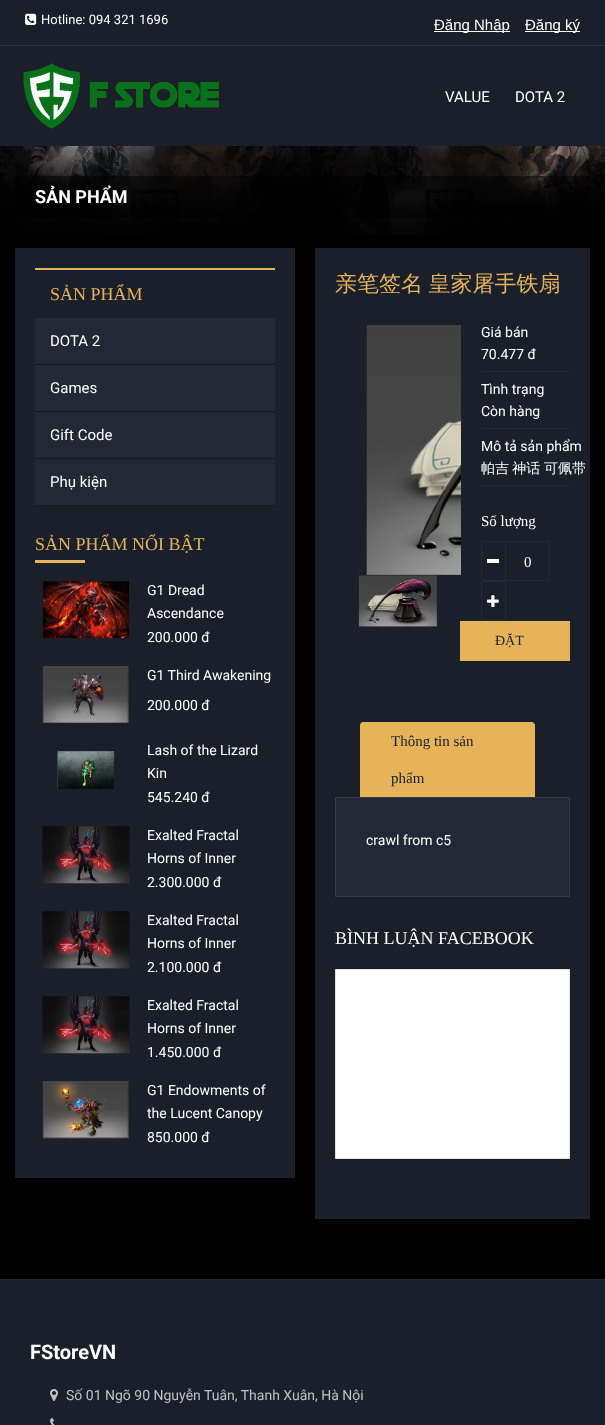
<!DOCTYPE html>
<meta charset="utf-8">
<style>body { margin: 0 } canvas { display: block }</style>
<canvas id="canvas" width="605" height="1425"></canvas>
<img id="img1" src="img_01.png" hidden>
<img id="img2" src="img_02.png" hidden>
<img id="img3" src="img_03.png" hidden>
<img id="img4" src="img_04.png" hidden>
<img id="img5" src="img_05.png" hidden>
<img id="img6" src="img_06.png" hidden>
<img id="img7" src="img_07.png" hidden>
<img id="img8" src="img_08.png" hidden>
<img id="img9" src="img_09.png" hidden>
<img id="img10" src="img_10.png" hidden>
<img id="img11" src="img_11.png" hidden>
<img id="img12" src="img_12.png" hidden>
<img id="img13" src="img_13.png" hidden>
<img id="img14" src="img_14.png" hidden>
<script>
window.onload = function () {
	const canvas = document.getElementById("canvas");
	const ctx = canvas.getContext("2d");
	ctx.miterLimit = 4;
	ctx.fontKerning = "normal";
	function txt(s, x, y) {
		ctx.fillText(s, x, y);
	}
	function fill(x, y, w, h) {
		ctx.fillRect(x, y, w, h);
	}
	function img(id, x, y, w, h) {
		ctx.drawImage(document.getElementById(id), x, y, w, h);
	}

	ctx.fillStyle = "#000000";
	fill(0, 0, 605, 1425);
	img("img1", 0, 146, 605, 89);
	ctx.fillStyle = "#1B1F2A";
	fill(0, 0, 605, 146);
	ctx.fillStyle = "#2B3142";
	fill(0, 45, 605, 1);
	img("img2", 25, 13, 12, 12);
	ctx.fillStyle = "#FFFFFF";
	fill(434, 31, 76, 1);
	fill(525, 31, 55, 1);
	img("img3", 23, 63, 196, 66);
	ctx.fillStyle = "rgba(0, 0, 0, 0.5)";
	fill(15, 176, 575, 42);
	ctx.fillStyle = "#1B1F2A";
	fill(15, 248, 280, 930);
	ctx.fillStyle = "#E4B35A";
	fill(35, 268, 240, 2);
	ctx.fillStyle = "#232836";
	fill(35, 318, 240, 187);
	ctx.fillStyle = "#061F30";
	fill(35, 364, 240, 1);
	fill(35, 411, 240, 1);
	fill(35, 458, 240, 1);
	fill(35, 505, 240, 1);
	ctx.fillStyle = "#E4B35A";
	fill(35, 560, 50, 3);
	img("img4", 42, 581, 87, 57);
	img("img5", 42, 666, 87, 57);
	img("img6", 57, 751, 58, 38);
	img("img7", 42, 826, 88, 58);
	img("img8", 42, 911, 88, 58);
	img("img7", 42, 996, 88, 58);
	img("img9", 42, 1081, 87, 58);
	ctx.fillStyle = "#1B1F2A";
	fill(315, 248, 275, 971);
	img("img10", 366, 325, 95, 250);
	img("img11", 358, 575, 79, 52);
	ctx.fillStyle = "#232836";
	fill(481, 371, 89, 1);
	fill(481, 428, 89, 1);
	fill(481, 485, 89, 1);
	ctx.beginPath();
	ctx.roundRect(481.5, 541.5, 24, 39, [3.5, 0, 0, 3.5]);
	ctx.strokeStyle = "#232836";
	ctx.stroke();
	ctx.fillStyle = "#FFFFFF";
	fill(487, 559, 12, 4);
	ctx.strokeRect(505.5, 541.5, 44, 39);
	ctx.beginPath();
	ctx.roundRect(481.5, 581.5, 24, 39, [0, 3.5, 3.5, 0]);
	ctx.stroke();
	img("img12", 487, 595, 12, 12);
	ctx.fillStyle = "#E4B35A";
	fill(460, 621, 110, 40);
	ctx.beginPath();
	ctx.roundRect(360, 722, 175, 75, [4, 4, 0, 0]);
	ctx.fill();
	ctx.beginPath();
	ctx.moveTo(364, 722);
	ctx.lineTo(531, 722);
	ctx.bezierCurveTo(533, 722, 535, 724, 535, 726);
	ctx.lineTo(535, 797);
	ctx.lineTo(360, 797);
	ctx.lineTo(360, 726);
	ctx.bezierCurveTo(360, 724, 362, 722, 364, 722);
	ctx.closePath();
	ctx.moveTo(364, 723);
	ctx.lineTo(531, 723);
	ctx.bezierCurveTo(533, 723, 534, 724, 534, 726);
	ctx.lineTo(534, 797);
	ctx.lineTo(361, 797);
	ctx.lineTo(361, 726);
	ctx.bezierCurveTo(361, 724, 362, 723, 364, 723);
	ctx.closePath();
	ctx.fill("evenodd");
	ctx.fillStyle = "#232836";
	ctx.beginPath();
	ctx.rect(335.5, 797.5, 234, 99);
	ctx.fill();
	ctx.strokeStyle = "#333A4E";
	ctx.stroke();
	ctx.fillStyle = "#FFFFFF";
	ctx.beginPath();
	ctx.rect(335.5, 969.5, 234, 189);
	ctx.fill();
	ctx.strokeStyle = "#E2E2E2";
	ctx.stroke();
	ctx.fillStyle = "#1B1F2A";
	fill(0, 1280, 605, 145);
	ctx.fillStyle = "#232836";
	fill(0, 1279, 605, 1);
	img("img13", 50, 1389, 8, 12);
	img("img14", 50, 1418, 5, 7);
	ctx.font = "13px Roboto";
	ctx.fillStyle = "#FFFFFF";
	txt("Hotline: 094 321 1696", 41, 24);
	ctx.font = "15px Liberation Sans";
	txt("Đăng Nhập", 434, 30);
	txt("Đăng ký", 525, 30);
	ctx.font = "15px Roboto";
	txt("VALUE", 445, 102);
	txt("DOTA 2", 515, 102);
	ctx.font = "bold 18px Roboto";
	txt("SẢN PHẨM", 35, 203);
	ctx.font = "18px Liberation Serif";
	ctx.fillStyle = "#E4B35A";
	txt("SẢN PHẨM", 50, 300);
	ctx.font = "15px Roboto";
	ctx.fillStyle = "#FFFFFF";
	txt("DOTA 2", 50, 346);
	txt("Games", 50, 393);
	txt("Gift Code", 50, 440);
	txt("Phụ kiện", 50, 487);
	ctx.font = "18px Liberation Serif";
	ctx.fillStyle = "#E4B35A";
	txt("SẢN PHẨM NỔI BẬT", 35, 550);
	ctx.font = "14px Roboto";
	ctx.fillStyle = "#FFFFFF";
	txt("G1 Dread", 147, 595);
	txt("Ascendance", 147, 618);
	txt("200.000 đ", 147, 642);
	txt("G1 Third Awakening", 147, 680);
	txt("200.000 đ", 147, 710);
	txt("Lash of the Lizard", 147, 755);
	txt("Kin", 147, 778);
	txt("545.240 đ", 147, 802);
	txt("Exalted Fractal", 147, 840);
	txt("Horns of Inner", 147, 863);
	txt("2.300.000 đ", 147, 887);
	txt("Exalted Fractal", 147, 925);
	txt("Horns of Inner", 147, 948);
	txt("2.100.000 đ", 147, 972);
	txt("Exalted Fractal", 147, 1010);
	txt("Horns of Inner", 147, 1033);
	txt("1.450.000 đ", 147, 1057);
	txt("G1 Endowments of", 147, 1095);
	txt("the Lucent Canopy", 147, 1118);
	txt("850.000 đ", 147, 1142);
	ctx.wordSpacing = "-1px";
	ctx.font = "500 22px WenQuanYi Zen Hei";
	ctx.fillStyle = "#E4B35A";
	txt("亲笔签名 皇家屠手铁扇", 335, 291);
	ctx.wordSpacing = "0px";
	ctx.font = "14px Roboto";
	ctx.fillStyle = "#FFFFFF";
	txt("Giá bán", 481, 337);
	txt("70.477 đ", 481, 359);
	txt("Tình trạng", 481, 394);
	txt("Còn hàng", 481, 416);
	txt("Mô tả sản phẩm", 481, 451);
	ctx.wordSpacing = "-1px";
	ctx.font = "500 14px WenQuanYi Zen Hei";
	txt("帕吉 神话", 481, 473);
	ctx.wordSpacing = "0px";
	txt("可佩带", 544, 473);
	ctx.font = "15px Liberation Serif";
	txt("Số lượng", 481, 526);
	txt("0", 524, 567);
	ctx.font = "14px Liberation Serif";
	ctx.fillStyle = "#222222";
	txt("ĐẶT", 495, 645);
	ctx.font = "15px Liberation Serif";
	ctx.fillStyle = "#1B1F2A";
	txt("Thông tin sản", 391, 746);
	txt("phẩm", 391, 783);
	ctx.font = "14px Roboto";
	ctx.fillStyle = "#FFFFFF";
	txt("crawl from c5", 366, 845);
	ctx.font = "18px Liberation Serif";
	txt("BÌNH LUẬN FACEBOOK", 335, 944);
	ctx.font = "bold 20px Roboto";
	txt("FStoreVN", 30, 1359);
	ctx.font = "14px Roboto";
	ctx.fillStyle = "#C2C2C2";
	txt("Số 01 Ngõ 90 Nguyễn Tuân, Thanh Xuân, Hà Nội", 66, 1400);
};
</script>
